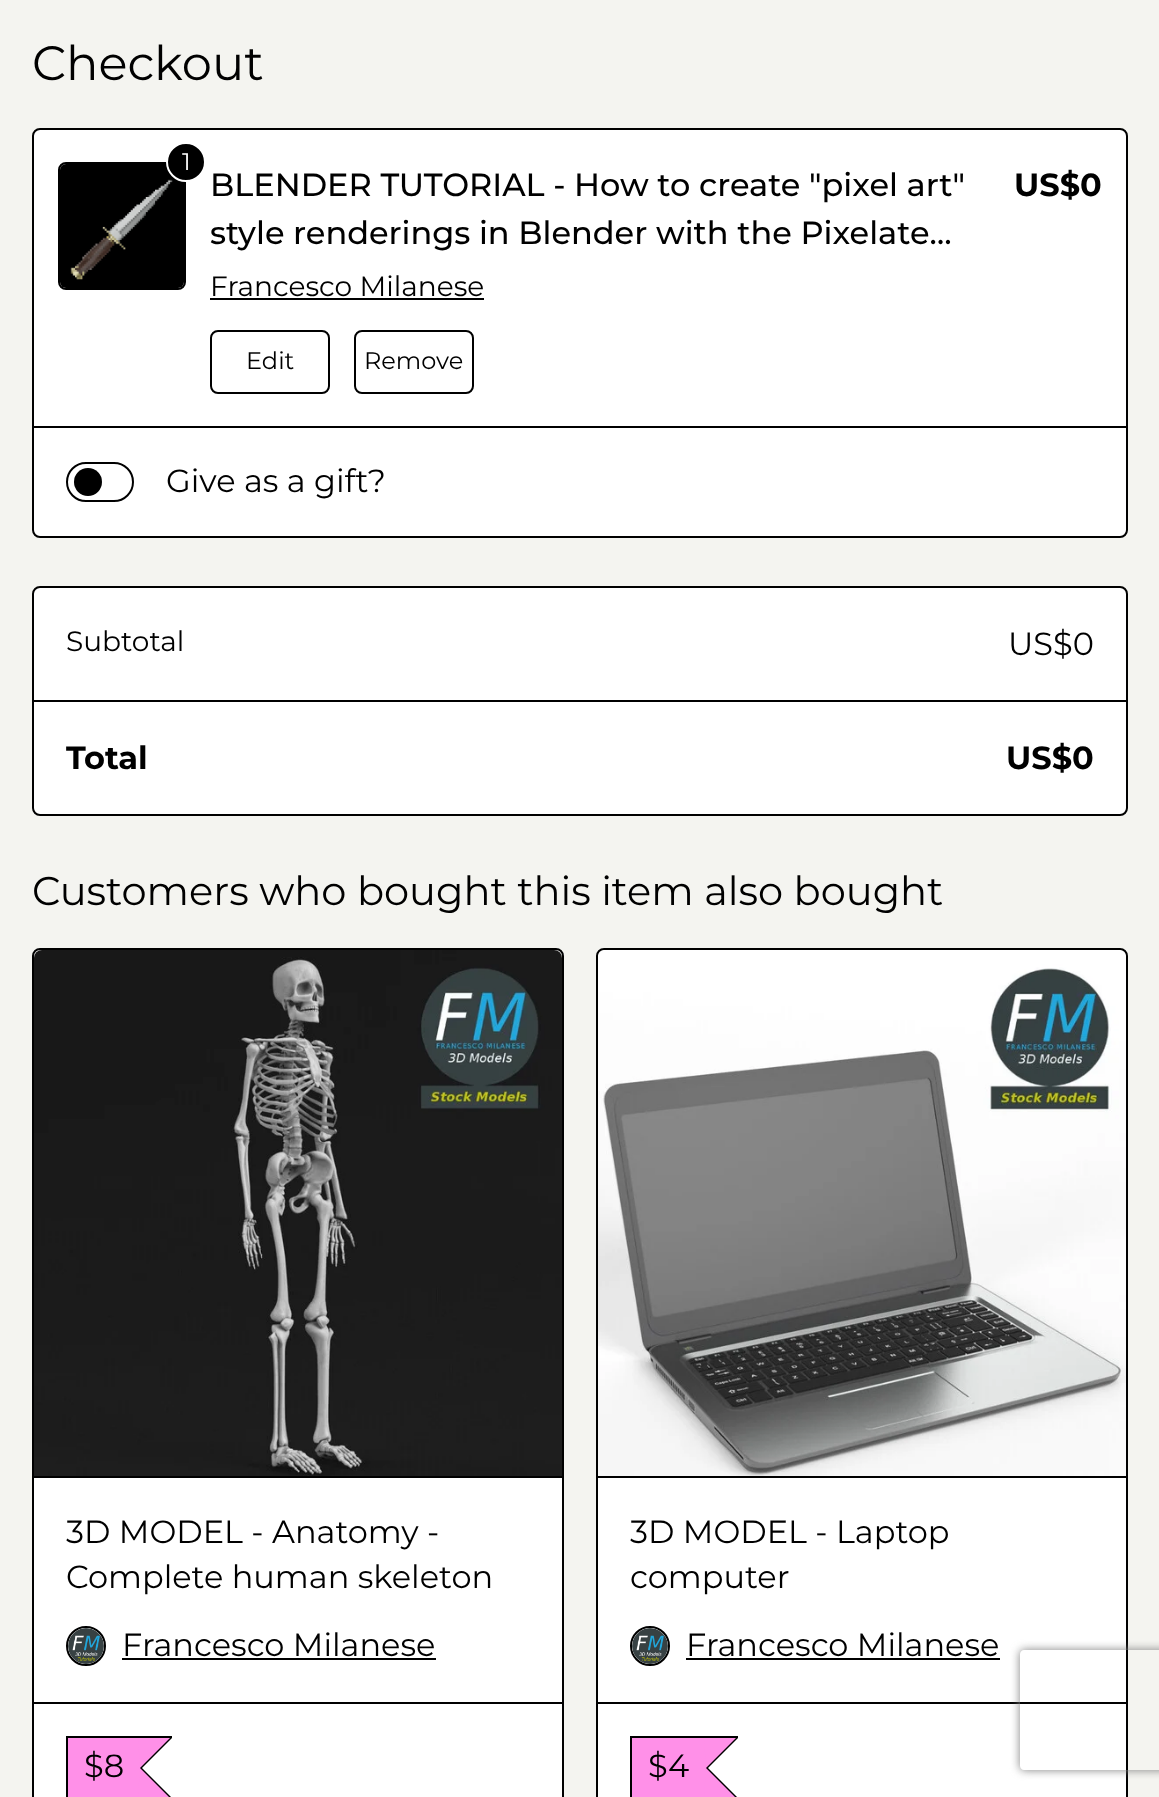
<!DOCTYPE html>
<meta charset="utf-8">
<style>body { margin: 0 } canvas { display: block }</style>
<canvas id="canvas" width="1159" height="1797"></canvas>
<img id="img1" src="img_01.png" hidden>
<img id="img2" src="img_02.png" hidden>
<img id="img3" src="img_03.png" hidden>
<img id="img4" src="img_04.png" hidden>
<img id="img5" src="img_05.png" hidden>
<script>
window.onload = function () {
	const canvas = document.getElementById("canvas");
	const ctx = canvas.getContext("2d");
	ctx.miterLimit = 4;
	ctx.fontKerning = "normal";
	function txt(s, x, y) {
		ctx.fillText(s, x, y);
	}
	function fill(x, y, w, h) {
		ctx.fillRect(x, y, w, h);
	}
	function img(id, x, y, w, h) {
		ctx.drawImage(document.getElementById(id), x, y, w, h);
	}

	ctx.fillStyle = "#F4F4F0";
	fill(0, 0, 1159, 1797);
	ctx.fillStyle = "#FFFFFF";
	ctx.beginPath();
	ctx.roundRect(33, 129, 1094, 408, 7);
	ctx.fill();
	ctx.strokeStyle = "#000000";
	ctx.lineWidth = 2;
	ctx.stroke();
	ctx.beginPath();
	ctx.roundRect(59, 163, 126, 126, 7);
	ctx.stroke();
	img("img1", 60, 164, 124, 124);
	ctx.fillStyle = "#000000";
	ctx.beginPath();
	ctx.arc(186, 162, 19, 0, Math.PI * 2);
	ctx.fill();
	ctx.strokeStyle = "#FFFFFF";
	ctx.stroke();
	fill(210, 298, 274, 2);
	ctx.beginPath();
	ctx.roundRect(211, 331, 118, 62, 7);
	ctx.strokeStyle = "#000000";
	ctx.stroke();
	ctx.beginPath();
	ctx.roundRect(355, 331, 118, 62, 7);
	ctx.stroke();
	fill(34, 426, 1092, 2);
	ctx.beginPath();
	ctx.roundRect(67, 463, 66, 38, 19);
	ctx.stroke();
	ctx.beginPath();
	ctx.arc(88, 482, 14, 0, Math.PI * 2);
	ctx.fill();
	ctx.fillStyle = "#FFFFFF";
	ctx.beginPath();
	ctx.roundRect(33, 587, 1094, 228, 7);
	ctx.fill();
	ctx.stroke();
	ctx.fillStyle = "#000000";
	fill(34, 700, 1092, 2);
	ctx.fillStyle = "#FFFFFF";
	ctx.beginPath();
	ctx.moveTo(40, 948);
	ctx.lineTo(556, 948);
	ctx.bezierCurveTo(560.5, 948, 564, 951.5, 564, 956);
	ctx.lineTo(564, 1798);
	ctx.lineTo(32, 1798);
	ctx.lineTo(32, 956);
	ctx.bezierCurveTo(32, 951.5, 35.5, 948, 40, 948);
	ctx.closePath();
	ctx.fill();
	ctx.beginPath();
	ctx.roundRect(33, 949, 530, 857, 7);
	ctx.stroke();
	ctx.fillStyle = "#000000";
	fill(34, 1476, 528, 2);
	img("img2", 34, 950, 528, 526);
	fill(34, 1702, 528, 2);
	ctx.beginPath();
	ctx.arc(86, 1646, 19, 0, Math.PI * 2);
	ctx.stroke();
	img("img3", 68, 1628, 36, 36);
	fill(122, 1658, 314, 2);
	fill(66, 1736, 106, 2);
	fill(66, 1736, 2, 61);
	ctx.fillStyle = "#FF90E8";
	fill(68, 1738, 72, 59);
	ctx.fillStyle = "#000000";
	ctx.beginPath();
	ctx.moveTo(140, 1738);
	ctx.lineTo(172, 1738);
	ctx.lineTo(142, 1768);
	ctx.closePath();
	ctx.moveTo(172, 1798);
	ctx.lineTo(140, 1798);
	ctx.lineTo(142, 1768);
	ctx.closePath();
	ctx.fill();
	fill(140, 1766, 2, 4);
	ctx.fillStyle = "#FF90E8";
	ctx.beginPath();
	ctx.moveTo(138, 1738);
	ctx.lineTo(170, 1738);
	ctx.lineTo(140, 1768);
	ctx.closePath();
	ctx.moveTo(170, 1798);
	ctx.lineTo(138, 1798);
	ctx.lineTo(140, 1768);
	ctx.closePath();
	ctx.fill();
	ctx.fillStyle = "#FFFFFF";
	ctx.beginPath();
	ctx.moveTo(604, 948);
	ctx.lineTo(1120, 948);
	ctx.bezierCurveTo(1124.5, 948, 1128, 951.5, 1128, 956);
	ctx.lineTo(1128, 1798);
	ctx.lineTo(596, 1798);
	ctx.lineTo(596, 956);
	ctx.bezierCurveTo(596, 951.5, 599.5, 948, 604, 948);
	ctx.closePath();
	ctx.fill();
	ctx.beginPath();
	ctx.roundRect(597, 949, 530, 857, 7);
	ctx.stroke();
	ctx.fillStyle = "#000000";
	fill(598, 1476, 528, 2);
	img("img4", 598, 950, 528, 526);
	fill(598, 1702, 528, 2);
	ctx.beginPath();
	ctx.arc(650, 1646, 19, 0, Math.PI * 2);
	ctx.stroke();
	img("img5", 632, 1628, 36, 36);
	fill(686, 1658, 314, 2);
	fill(630, 1736, 108, 2);
	fill(630, 1736, 2, 61);
	ctx.fillStyle = "#FF90E8";
	fill(632, 1738, 74, 59);
	ctx.fillStyle = "#000000";
	ctx.beginPath();
	ctx.moveTo(706, 1738);
	ctx.lineTo(738, 1738);
	ctx.lineTo(708, 1768);
	ctx.closePath();
	ctx.moveTo(738, 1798);
	ctx.lineTo(706, 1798);
	ctx.lineTo(708, 1768);
	ctx.closePath();
	ctx.fill();
	fill(706, 1766, 2, 4);
	ctx.fillStyle = "#FF90E8";
	ctx.beginPath();
	ctx.moveTo(704, 1738);
	ctx.lineTo(736, 1738);
	ctx.lineTo(706, 1768);
	ctx.closePath();
	ctx.moveTo(736, 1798);
	ctx.lineTo(704, 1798);
	ctx.lineTo(706, 1768);
	ctx.closePath();
	ctx.fill();
	ctx.save();
	ctx.beginPath();
	ctx.moveTo(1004, 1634);
	ctx.lineTo(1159, 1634);
	ctx.lineTo(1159, 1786);
	ctx.lineTo(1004, 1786);
	ctx.closePath();
	ctx.moveTo(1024, 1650);
	ctx.lineTo(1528, 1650);
	ctx.bezierCurveTo(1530, 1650, 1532, 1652, 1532, 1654);
	ctx.lineTo(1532, 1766);
	ctx.bezierCurveTo(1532, 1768, 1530, 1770, 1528, 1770);
	ctx.lineTo(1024, 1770);
	ctx.bezierCurveTo(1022, 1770, 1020, 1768, 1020, 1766);
	ctx.lineTo(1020, 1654);
	ctx.bezierCurveTo(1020, 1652, 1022, 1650, 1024, 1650);
	ctx.closePath();
	ctx.clip("evenodd");
	ctx.fillStyle = "#808080";
	ctx.filter = "blur(5px)";
	ctx.beginPath();
	ctx.roundRect(1020, 1650, 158, 120, 4);
	ctx.fill();
	ctx.filter = "none";
	ctx.restore();
	ctx.font = "48px Montserrat";
	ctx.fillStyle = "#000000";
	txt("Checkout", 32, 80);
	ctx.font = "24px Montserrat";
	ctx.fillStyle = "#FFFFFF";
	txt("1", 182, 170);
	ctx.font = "500 32px Montserrat";
	ctx.fillStyle = "#000000";
	txt("BLENDER TUTORIAL - How to create \"pixel art\"", 210, 196);
	txt("style renderings in Blender with the Pixelate…", 210, 244);
	ctx.font = "28px Montserrat";
	txt("Francesco Milanese", 210, 296);
	ctx.font = "24px Montserrat";
	txt("Edit", 246, 369);
	txt("Remove", 364, 369);
	ctx.font = "bold 32px Montserrat";
	txt("US$0", 1014, 196);
	ctx.font = "32px Montserrat";
	txt("Give as a gift?", 166, 492);
	ctx.font = "28px Montserrat";
	txt("Subtotal", 66, 651);
	ctx.font = "32px Montserrat";
	txt("US$0", 1008, 655);
	ctx.font = "bold 32px Montserrat";
	txt("Total", 66, 769);
	txt("US$0", 1006, 769);
	ctx.font = "40px Montserrat";
	txt("Customers who bought this item also bought", 32, 905);
	ctx.font = "32px Montserrat";
	txt("3D MODEL - Anatomy -", 66, 1543);
	txt("Complete human skeleton", 66, 1588);
	txt("Francesco Milanese", 122, 1656);
	txt("$8", 84, 1777);
	txt("3D MODEL - Laptop", 630, 1543);
	txt("computer", 630, 1588);
	txt("Francesco Milanese", 686, 1656);
	txt("$4", 648, 1777);
};
</script>
